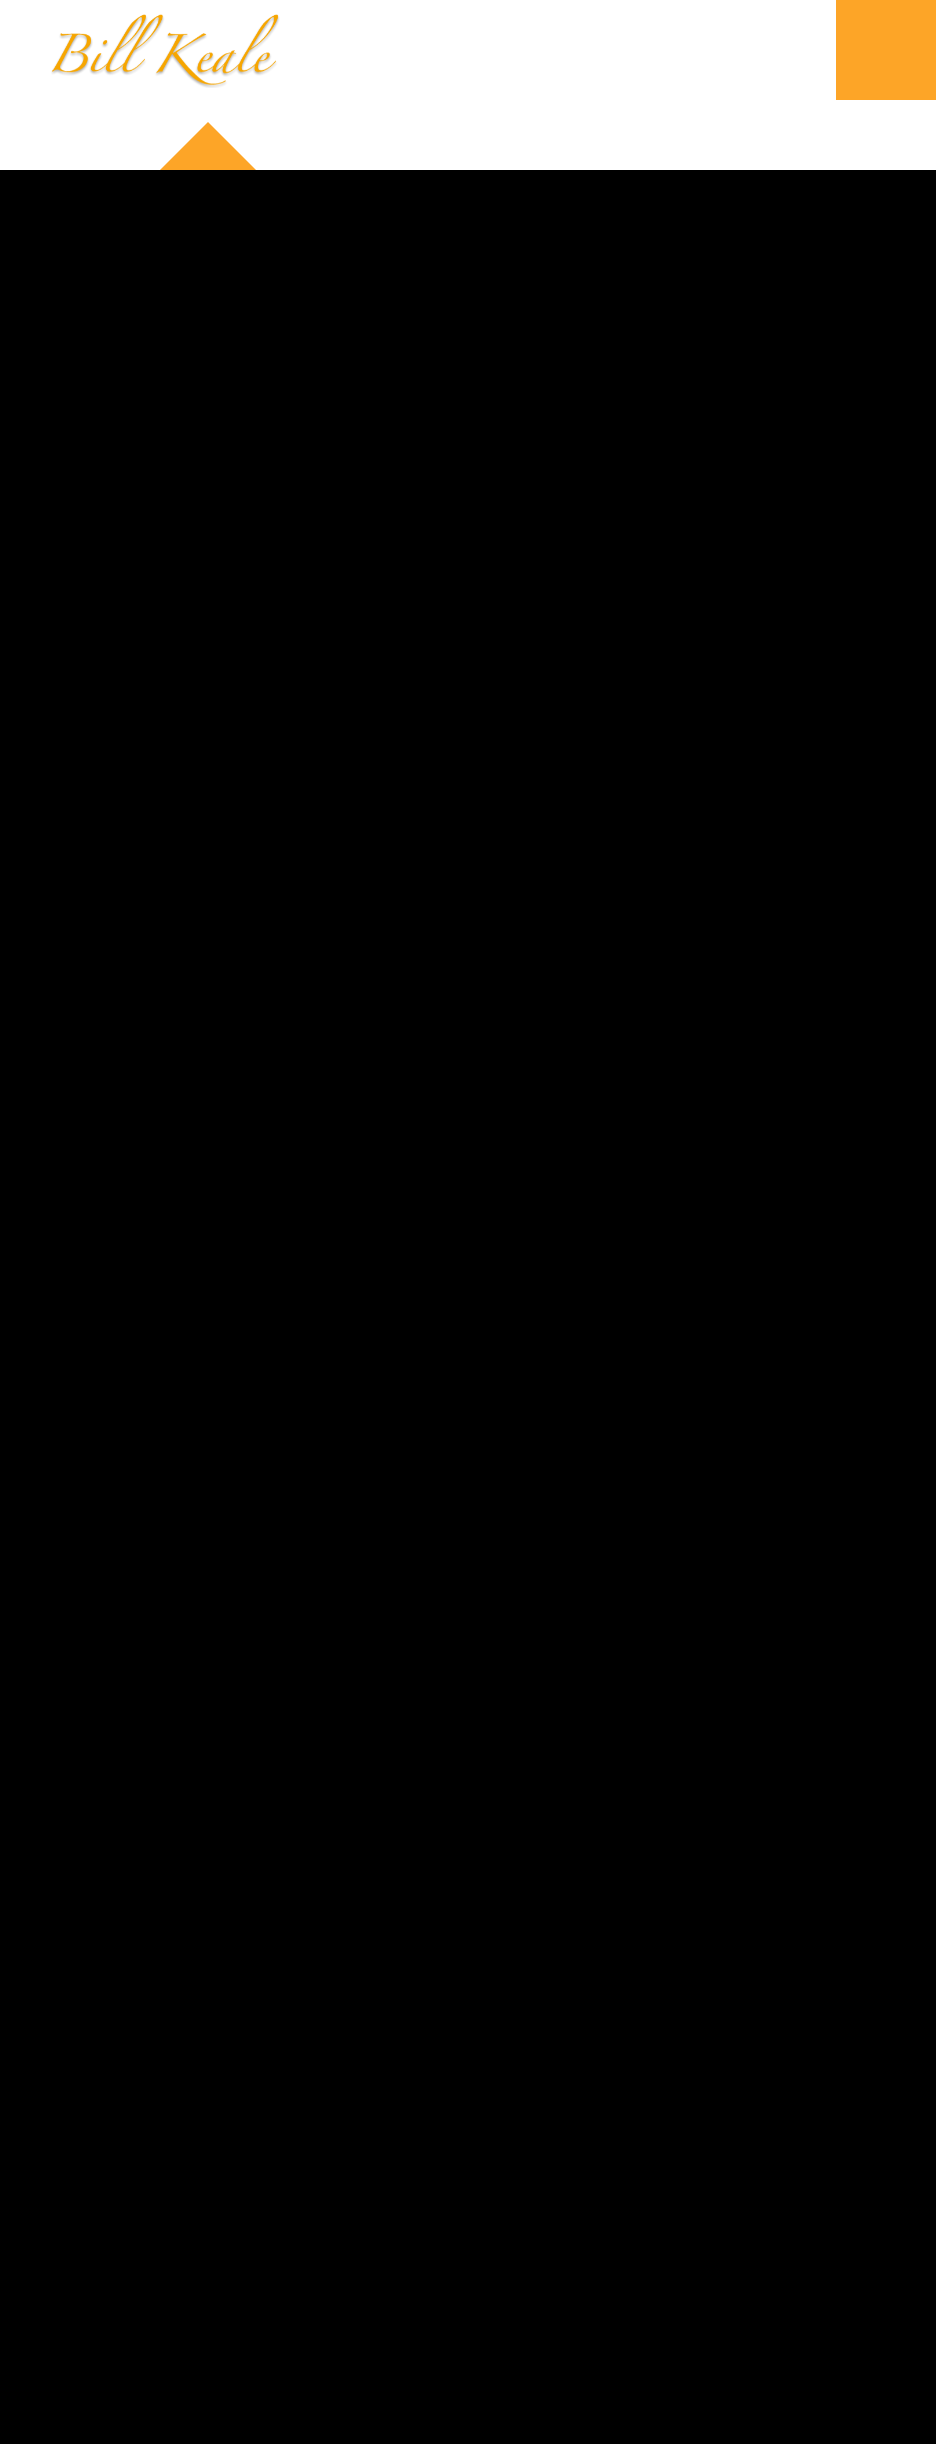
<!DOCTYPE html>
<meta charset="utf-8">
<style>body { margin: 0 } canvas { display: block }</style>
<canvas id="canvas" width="936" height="2444"></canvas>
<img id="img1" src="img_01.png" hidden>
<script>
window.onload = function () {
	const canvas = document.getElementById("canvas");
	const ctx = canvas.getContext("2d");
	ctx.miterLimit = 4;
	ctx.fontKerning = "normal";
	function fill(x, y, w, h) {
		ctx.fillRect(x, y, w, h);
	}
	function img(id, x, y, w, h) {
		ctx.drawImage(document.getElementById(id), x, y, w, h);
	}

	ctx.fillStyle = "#FFFFFF";
	fill(0, 0, 936, 2444);
	img("img1", 51, 14, 229, 74);
	ctx.fillStyle = "#FDA527";
	fill(836, 0, 100, 100);
	ctx.beginPath();
	ctx.moveTo(208, 122);
	ctx.lineTo(286, 200);
	ctx.lineTo(208, 278);
	ctx.lineTo(130, 200);
	ctx.closePath();
	ctx.fill();
	ctx.fillStyle = "#000000";
	fill(0, 170, 936, 2274);
};
</script>
